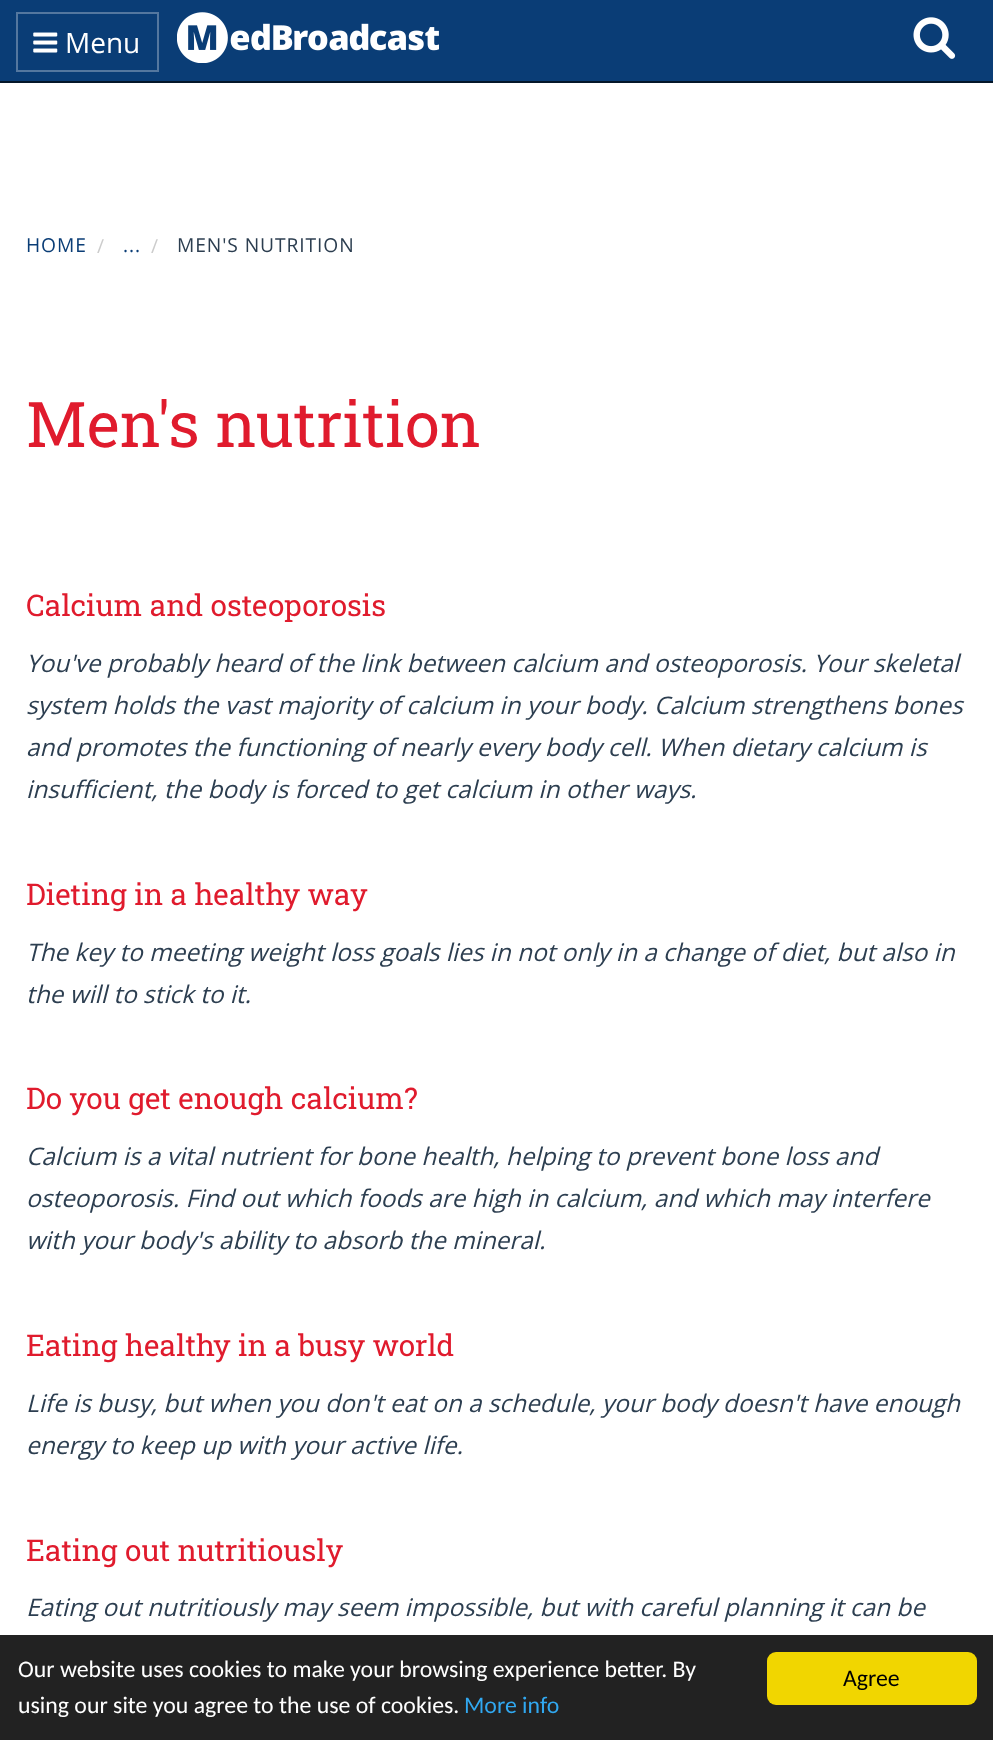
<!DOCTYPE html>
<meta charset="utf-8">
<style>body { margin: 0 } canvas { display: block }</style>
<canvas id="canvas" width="993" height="1740"></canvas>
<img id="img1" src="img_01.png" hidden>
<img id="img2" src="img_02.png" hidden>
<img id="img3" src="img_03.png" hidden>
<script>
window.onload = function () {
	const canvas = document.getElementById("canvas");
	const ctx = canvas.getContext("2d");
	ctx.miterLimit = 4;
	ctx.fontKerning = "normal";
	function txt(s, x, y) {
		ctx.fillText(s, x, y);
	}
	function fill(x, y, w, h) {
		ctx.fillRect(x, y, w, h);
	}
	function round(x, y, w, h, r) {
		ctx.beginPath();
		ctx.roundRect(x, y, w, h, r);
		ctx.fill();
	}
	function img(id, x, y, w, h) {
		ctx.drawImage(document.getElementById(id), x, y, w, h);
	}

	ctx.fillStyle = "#FFFFFF";
	fill(0, 0, 993, 1740);
	ctx.fillStyle = "#0A3D76";
	fill(0, 0, 993, 81);
	ctx.fillStyle = "#041629";
	fill(0, 81, 993, 2);
	ctx.strokeStyle = "#54779F";
	ctx.lineWidth = 2;
	ctx.strokeRect(17, 13, 141, 58);
	img("img1", 33, 32, 25, 21);
	img("img2", 177, 12, 262, 51);
	img("img3", 913, 17, 43, 42);
	ctx.fillStyle = "#222222";
	fill(0, 1635, 993, 105);
	ctx.fillStyle = "#F1D600";
	round(767, 1652, 210, 53, 9);
	ctx.font = "28px Open Sans";
	ctx.fillStyle = "#FFFFFF";
	txt("Menu", 65, 53);
	ctx.letterSpacing = "0.9px";
	ctx.font = "19.25px Open Sans";
	ctx.fillStyle = "#0A3D76";
	txt("HOME", 26, 252);
	ctx.fillStyle = "#CCCCCC";
	txt("/", 97, 253);
	ctx.fillStyle = "#0A3D76";
	txt("...", 123, 252);
	ctx.fillStyle = "#CCCCCC";
	txt("/", 151, 253);
	ctx.fillStyle = "#2C3E50";
	txt("MEN'S NUTRITION", 177, 252);
	ctx.letterSpacing = "0px";
	ctx.font = "63px Roboto Slab";
	ctx.fillStyle = "#E01B2D";
	txt("Men's nutrition", 26, 447);
	ctx.font = "29.75px Roboto Slab";
	txt("Calcium and osteoporosis", 26, 616);
	ctx.font = "italic 24.35px Open Sans";
	ctx.fillStyle = "#2C3E50";
	txt("You've probably heard of the link between calcium and osteoporosis. Your skeletal", 26, 672);
	txt("system holds the vast majority of calcium in your body. Calcium strengthens bones", 26, 714);
	txt("and promotes the functioning of nearly every body cell. When dietary calcium is", 26, 756);
	txt("insufficient, the body is forced to get calcium in other ways.", 26, 798);
	ctx.font = "29.75px Roboto Slab";
	ctx.fillStyle = "#E01B2D";
	txt("Dieting in a healthy way", 26, 905);
	ctx.font = "italic 24.35px Open Sans";
	ctx.fillStyle = "#2C3E50";
	txt("The key to meeting weight loss goals lies in not only in a change of diet, but also in", 26, 961);
	txt("the will to stick to it.", 26, 1003);
	ctx.font = "29.75px Roboto Slab";
	ctx.fillStyle = "#E01B2D";
	txt("Do you get enough calcium?", 26, 1109);
	ctx.font = "italic 24.35px Open Sans";
	ctx.fillStyle = "#2C3E50";
	txt("Calcium is a vital nutrient for bone health, helping to prevent bone loss and", 26, 1165);
	txt("osteoporosis. Find out which foods are high in calcium, and which may interfere", 26, 1207);
	txt("with your body's ability to absorb the mineral.", 26, 1249);
	ctx.font = "29.75px Roboto Slab";
	ctx.fillStyle = "#E01B2D";
	txt("Eating healthy in a busy world", 26, 1356);
	ctx.font = "italic 24.35px Open Sans";
	ctx.fillStyle = "#2C3E50";
	txt("Life is busy, but when you don't eat on a schedule, your body doesn't have enough", 26, 1412);
	txt("energy to keep up with your active life.", 26, 1454);
	ctx.font = "29.75px Roboto Slab";
	ctx.fillStyle = "#E01B2D";
	txt("Eating out nutritiously", 26, 1561);
	ctx.font = "italic 24.35px Open Sans";
	ctx.fillStyle = "#2C3E50";
	txt("Eating out nutritiously may seem impossible, but with careful planning it can be", 26, 1616);
	ctx.font = "23.8px Carlito";
	ctx.fillStyle = "#FFFFFF";
	txt("Our website uses cookies to make your browsing experience better. By", 18, 1677);
	txt("using our site you agree to the use of cookies.", 18, 1713);
	ctx.fillStyle = "#31A8F0";
	txt("More info", 464, 1713);
	ctx.fillStyle = "#000000";
	txt("Agree", 843, 1686);
};
</script>
